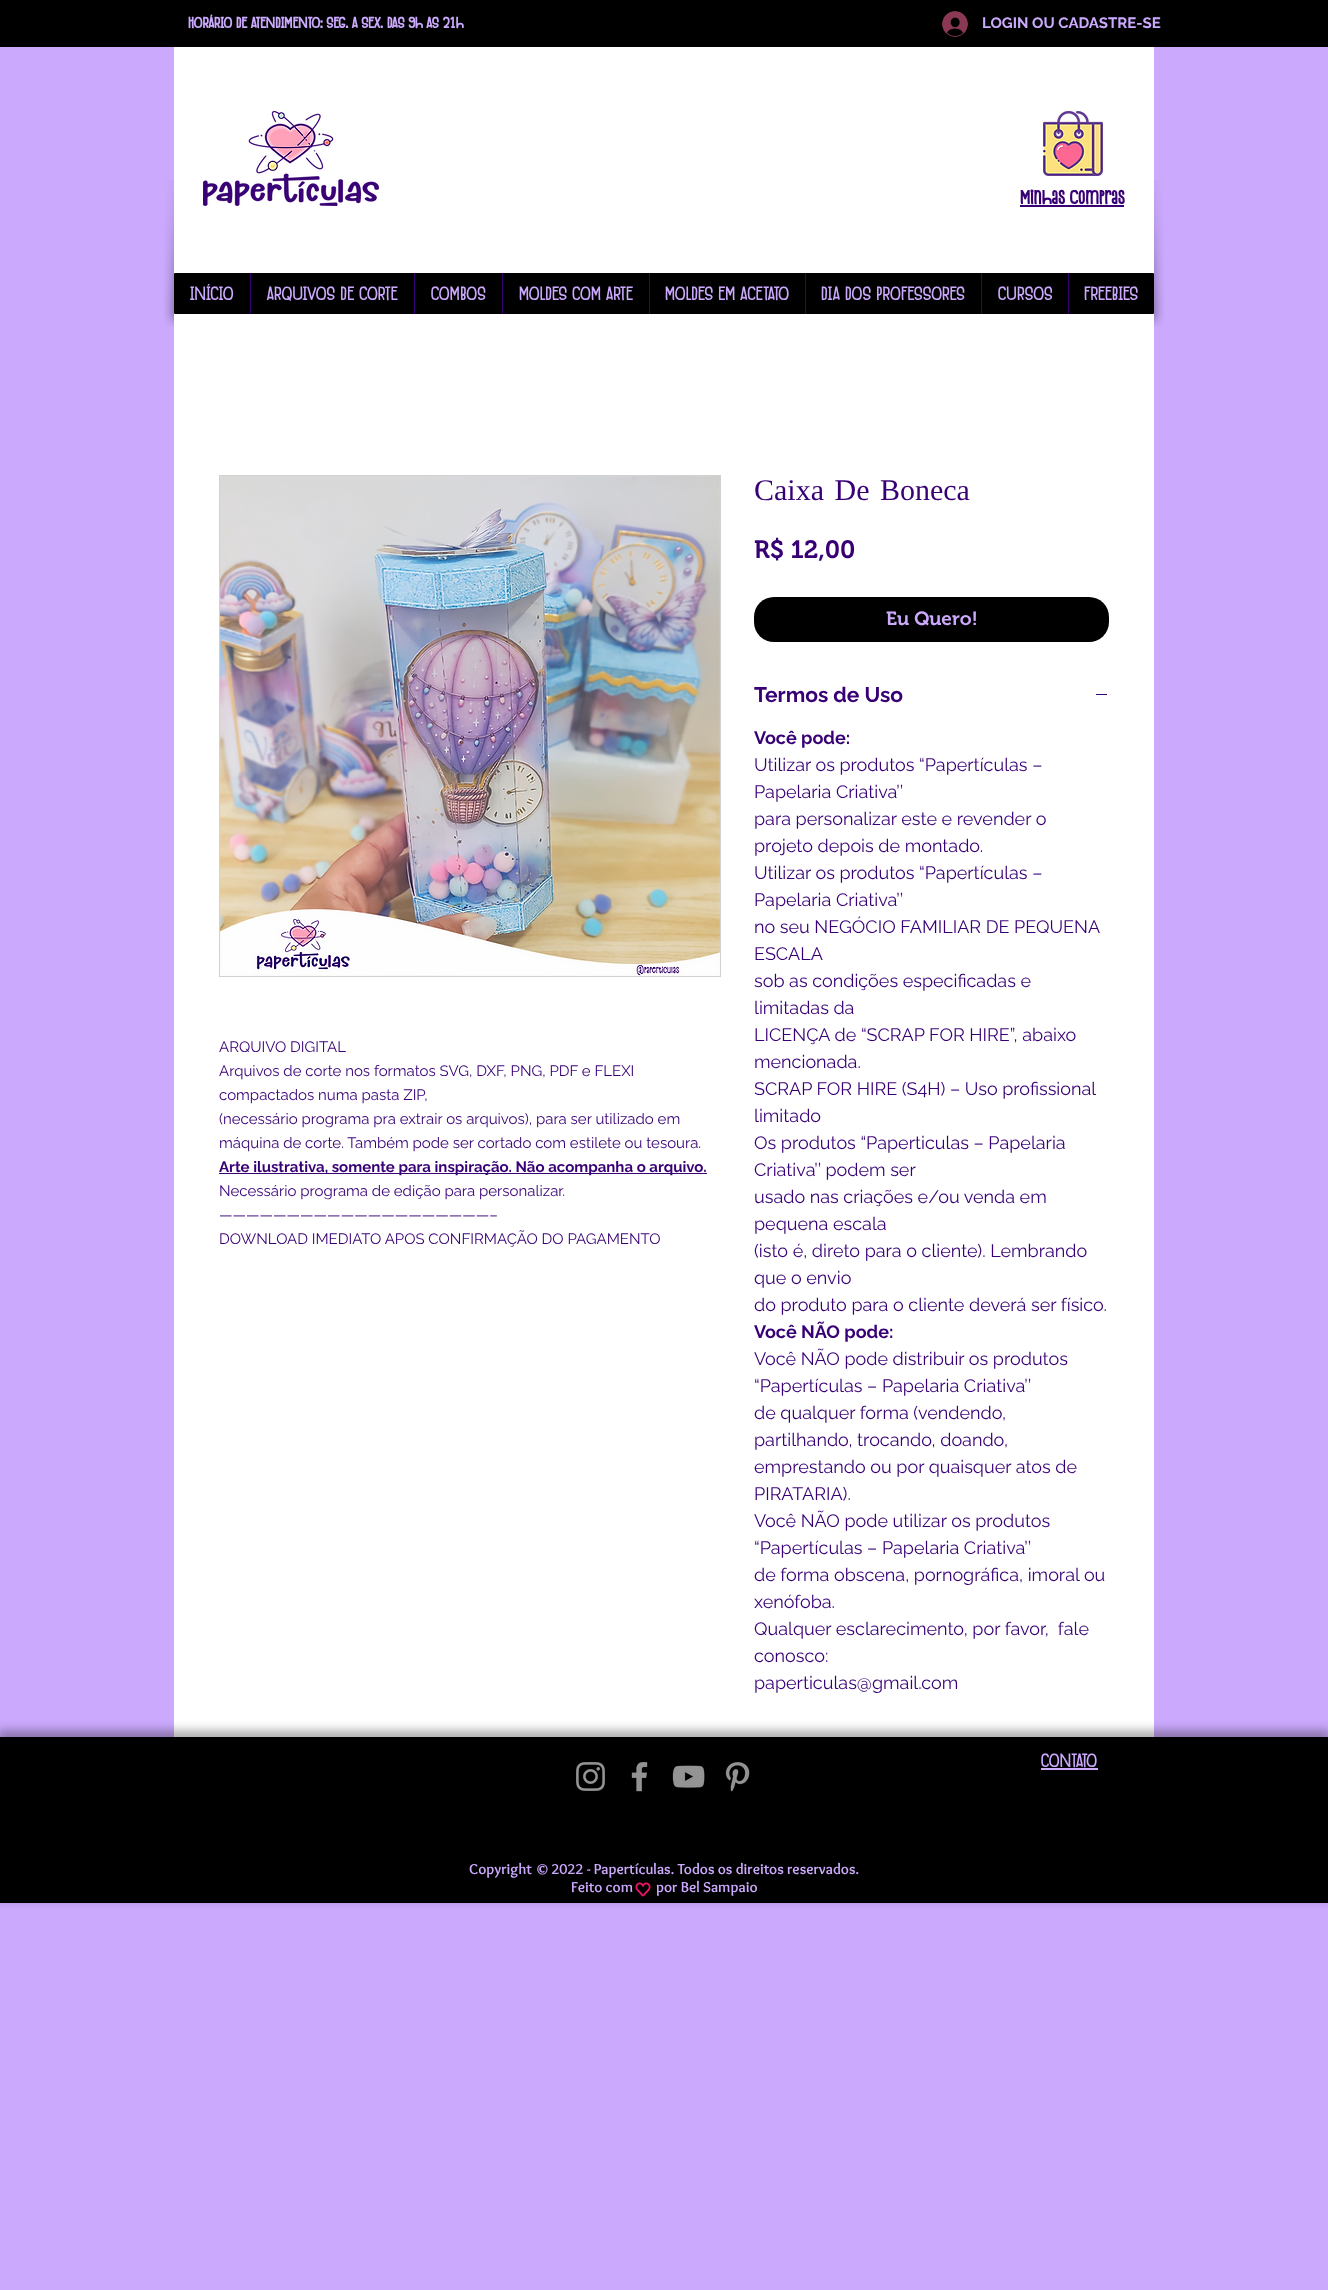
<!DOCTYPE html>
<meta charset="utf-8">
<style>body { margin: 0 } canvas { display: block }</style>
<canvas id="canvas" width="1328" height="2290"></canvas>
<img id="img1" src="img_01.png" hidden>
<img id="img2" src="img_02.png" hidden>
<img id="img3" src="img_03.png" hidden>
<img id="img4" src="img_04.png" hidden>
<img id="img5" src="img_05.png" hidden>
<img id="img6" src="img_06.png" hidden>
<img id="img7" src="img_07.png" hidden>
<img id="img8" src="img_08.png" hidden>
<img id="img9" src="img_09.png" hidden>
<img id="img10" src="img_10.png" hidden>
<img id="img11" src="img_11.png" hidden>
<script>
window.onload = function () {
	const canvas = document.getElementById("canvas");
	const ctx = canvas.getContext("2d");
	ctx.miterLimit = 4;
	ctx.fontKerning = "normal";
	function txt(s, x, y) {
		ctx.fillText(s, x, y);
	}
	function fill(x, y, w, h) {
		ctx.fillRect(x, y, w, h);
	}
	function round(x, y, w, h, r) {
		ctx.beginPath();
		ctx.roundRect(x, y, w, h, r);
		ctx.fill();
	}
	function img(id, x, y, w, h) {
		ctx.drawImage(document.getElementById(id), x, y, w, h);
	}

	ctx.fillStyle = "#CBA9FD";
	fill(0, 0, 1328, 2290);
	ctx.fillStyle = "#000000";
	fill(0, 0, 1328, 47);
	img("img1", 942, 11, 26, 26);
	ctx.fillStyle = "#FFFFFF";
	fill(174, 47, 980, 1690);
	img("img2", 203, 111, 176, 95);
	img("img3", 1043, 111, 60, 65);
	ctx.fillStyle = "#380075";
	fill(1020, 205, 104, 2);
	ctx.fillStyle = "#000000";
	round(174, 273, 980, 41, 1);
	ctx.fillStyle = "#380075";
	fill(250, 273, 1, 41);
	fill(414, 273, 1, 41);
	fill(502, 273, 1, 41);
	fill(649, 273, 1, 41);
	fill(805, 273, 1, 41);
	fill(981, 273, 1, 41);
	fill(1068, 273, 1, 41);
	img("img4", 164, 180, 10, 147);
	img("img5", 1154, 180, 10, 147);
	ctx.strokeStyle = "#D1D1D1";
	ctx.strokeRect(219.5, 475.5, 501, 501);
	img("img6", 220, 476, 500, 500);
	fill(219, 1173, 488, 1);
	ctx.fillStyle = "#000000";
	round(754, 597, 355, 45, 20);
	ctx.fillStyle = "#380075";
	fill(1096, 694, 11, 1);
	ctx.fillStyle = "rgba(0, 0, 0, 0.3)";
	ctx.filter = "blur(5px)";
	ctx.beginPath();
	ctx.rect(-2, 1730, 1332, 170);
	ctx.fill();
	ctx.filter = "none";
	ctx.fillStyle = "#000000";
	fill(0, 1737, 1328, 166);
	ctx.fillStyle = "#CBA9FD";
	fill(1041, 1768, 57, 2);
	img("img7", 576, 1762, 29, 29);
	img("img8", 631, 1762, 17, 30);
	img("img9", 672, 1765, 33, 23);
	img("img10", 725, 1762, 25, 30);
	img("img11", 635, 1882, 16, 15);
	ctx.font = "bold 16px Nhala";
	txt("HORÁRIO DE ATENDIMENTO: SEG. A SEX. DAS 9h AS 21h", 188, 28);
	ctx.font = "bold 15px Raleway";
	txt("LOGIN OU CADASTRE-SE", 982, 28);
	ctx.font = "bold 20px Nhala";
	ctx.fillStyle = "#380075";
	txt("Minhas Compras", 1020, 204);
	ctx.font = "20px Nhala";
	ctx.fillStyle = "#CBA9FD";
	txt("INÍCIO", 190, 300);
	txt("ARQUIVOS DE CORTE", 267, 300);
	txt("COMBOS", 431, 300);
	txt("MOLDES COM ARTE", 519, 300);
	txt("MOLDES EM ACETATO", 665, 300);
	txt("DIA DOS PROFESSORES", 821, 300);
	txt("CURSOS", 998, 300);
	txt("FREEBIES", 1084, 300);
	ctx.font = "15px Raleway";
	ctx.fillStyle = "#380075";
	txt("ARQUIVO DIGITAL", 219, 1052);
	txt("Arquivos de corte nos formatos SVG, DXF, PNG, PDF e FLEXI", 219, 1076);
	txt("compactados numa pasta ZIP,", 219, 1100);
	txt("(necessário programa pra extrair os arquivos), para ser utilizado em", 219, 1124);
	txt("máquina de corte. Também pode ser cortado com estilete ou tesoura.", 219, 1148);
	ctx.font = "bold 15px Raleway";
	txt("Arte ilustrativa, somente para inspiração. Não acompanha o arquivo.", 219, 1172);
	ctx.font = "15px Raleway";
	txt("Necessário programa de edição para personalizar.", 219, 1196);
	txt("————————————————————–", 219, 1220);
	txt("DOWNLOAD IMEDIATO APOS CONFIRMAÇÃO DO PAGAMENTO", 219, 1244);
	ctx.wordSpacing = "3px";
	ctx.font = "30px Liberation Serif";
	txt("Caixa De Boneca", 754, 500);
	ctx.wordSpacing = "0px";
	ctx.font = "600 25px 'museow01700'";
	txt("R$ 12,00", 754, 558);
	ctx.font = "600 19px 'museow01700'";
	ctx.fillStyle = "#CBA9FD";
	txt("Eu Quero!", 886, 625);
	ctx.font = "bold 21px Raleway";
	ctx.fillStyle = "#380075";
	txt("Termos de Uso", 754, 702);
	ctx.font = "bold 18px Raleway";
	txt("Você pode:", 754, 744);
	ctx.font = "18px Raleway";
	txt("Utilizar os produtos “Papertículas –", 754, 771);
	txt("Papelaria Criativa’’", 754, 798);
	txt("para personalizar este e revender o", 754, 825);
	txt("projeto depois de montado.", 754, 852);
	txt("Utilizar os produtos “Papertículas –", 754, 879);
	txt("Papelaria Criativa’’", 754, 906);
	txt("no seu NEGÓCIO FAMILIAR DE PEQUENA", 754, 933);
	txt("ESCALA", 754, 960);
	txt("sob as condições especificadas e", 754, 987);
	txt("limitadas da", 754, 1014);
	txt("LICENÇA de “SCRAP FOR HIRE”, abaixo", 754, 1041);
	txt("mencionada.", 754, 1068);
	txt("SCRAP FOR HIRE (S4H) – Uso profissional", 754, 1095);
	txt("limitado", 754, 1122);
	txt("Os produtos “Paperticulas – Papelaria", 754, 1149);
	txt("Criativa’’ podem ser", 754, 1176);
	txt("usado nas criações e/ou venda em", 754, 1203);
	txt("pequena escala", 754, 1230);
	txt("(isto é, direto para o cliente). Lembrando", 754, 1257);
	txt("que o envio", 754, 1284);
	txt("do produto para o cliente deverá ser físico.", 754, 1311);
	ctx.font = "bold 18px Raleway";
	txt("Você NÃO pode:", 754, 1338);
	ctx.font = "18px Raleway";
	txt("Você NÃO pode distribuir os produtos", 754, 1365);
	txt("“Papertículas – Papelaria Criativa’’", 754, 1392);
	txt("de qualquer forma (vendendo,", 754, 1419);
	txt("partilhando, trocando, doando,", 754, 1446);
	txt("emprestando ou por quaisquer atos de", 754, 1473);
	txt("PIRATARIA).", 754, 1500);
	txt("Você NÃO pode utilizar os produtos", 754, 1527);
	txt("“Papertículas – Papelaria Criativa’’", 754, 1554);
	txt("de forma obscena, pornográfica, imoral ou", 754, 1581);
	txt("xenófoba.", 754, 1608);
	txt("Qualquer esclarecimento, por favor,  fale", 754, 1635);
	txt("conosco:", 754, 1662);
	txt("paperticulas@gmail.com", 754, 1689);
	ctx.font = "20px Nhala";
	ctx.fillStyle = "#CBA9FD";
	txt("CONTATO", 1041, 1767);
	ctx.font = "bold 15px Overlock";
	txt("Copyright © 2022 - Papertículas. Todos os direitos reservados.", 469, 1874);
	txt("Feito com", 571, 1892);
	txt("por Bel Sampaio", 656, 1892);
};
</script>
